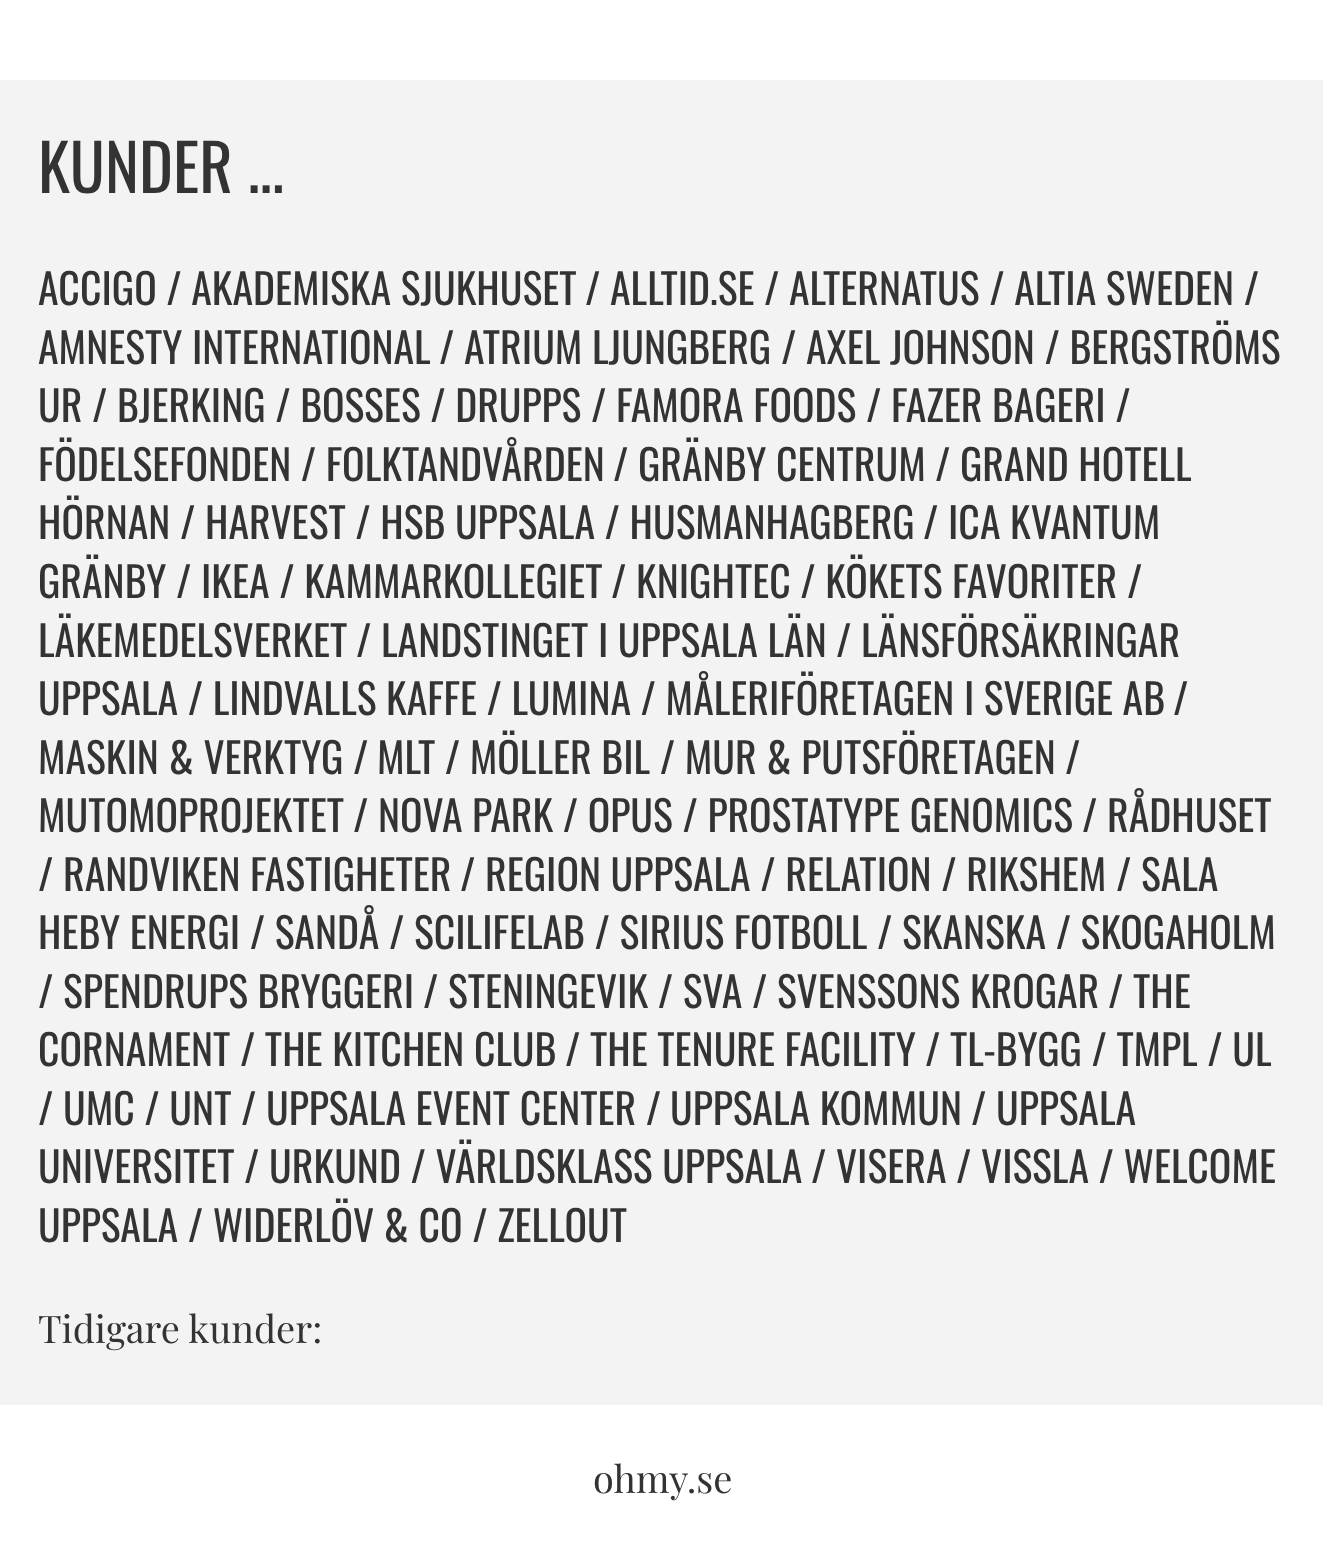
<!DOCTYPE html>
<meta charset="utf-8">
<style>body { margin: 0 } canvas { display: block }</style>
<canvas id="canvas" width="1323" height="1568"></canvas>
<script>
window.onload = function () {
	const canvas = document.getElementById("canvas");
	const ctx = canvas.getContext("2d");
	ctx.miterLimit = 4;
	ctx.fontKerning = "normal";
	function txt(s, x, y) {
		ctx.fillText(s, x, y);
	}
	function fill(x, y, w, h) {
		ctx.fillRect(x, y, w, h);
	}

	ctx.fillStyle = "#FFFFFF";
	fill(0, 0, 1323, 1568);
	ctx.fillStyle = "#F3F3F3";
	fill(0, 80, 1323, 1325);
	ctx.font = "64.5px Oswald";
	ctx.fillStyle = "#333333";
	txt("KUNDER ...", 38, 193);
	ctx.font = "41.8px Oswald";
	txt("ACCIGO / AKADEMISKA SJUKHUSET", 38, 305);
	txt("/ ALLTID.SE / ALTERNATUS / ALTIA SWEDEN /", 585, 305);
	txt("AMNESTY INTERNATIONAL", 38, 364);
	txt("/ ATRIUM LJUNGBERG", 439, 364);
	txt("/ AXEL JOHNSON / BERGSTRÖMS", 781, 364);
	txt("UR / BJERKING / BOSSES / DRUPPS / FAMORA FOODS / FAZER BAGERI /", 38, 422);
	txt("FÖDELSEFONDEN / FOLKTANDVÅRDEN", 38, 481);
	txt("/ GRÄNBY CENTRUM", 613, 481);
	txt("/ GRAND HOTELL", 935, 481);
	txt("HÖRNAN / HARVEST / HSB UPPSALA / HUSMANHAGBERG", 38, 539);
	txt("/ ICA KVANTUM", 923, 539);
	txt("GRÄNBY / IKEA / KAMMARKOLLEGIET", 38, 598);
	txt("/ KNIGHTEC / KÖKETS FAVORITER", 611, 598);
	txt("/", 1127, 598);
	txt("LÄKEMEDELSVERKET", 38, 657);
	txt("/ LANDSTINGET I UPPSALA LÄN", 356, 657);
	txt("/ LÄNSFÖRSÄKRINGAR", 836, 657);
	txt("UPPSALA / LINDVALLS KAFFE / LUMINA / MÅLERIFÖRETAGEN I SVERIGE AB", 38, 715);
	txt("/", 1173, 715);
	txt("MASKIN & VERKTYG /", 38, 774);
	txt("MLT / MÖLLER BIL / MUR & PUTSFÖRETAGEN", 377, 774);
	txt("/", 1065, 774);
	txt("MUTOMOPROJEKTET", 38, 832);
	txt("/ NOVA PARK / OPUS / PROSTATYPE GENOMICS", 353, 832);
	txt("/ RÅDHUSET", 1082, 832);
	txt("/ RANDVIKEN FASTIGHETER", 38, 891);
	txt("/ REGION UPPSALA / RELATION / RIKSHEM / SALA", 460, 891);
	txt("HEBY ENERGI / SANDÅ / SCILIFELAB / SIRIUS FOTBOLL / SKANSKA / SKOGAHOLM", 38, 949);
	txt("/ SPENDRUPS BRYGGERI", 38, 1008);
	txt("/ STENINGEVIK / SVA / SVENSSONS KROGAR", 423, 1008);
	txt("/ THE", 1108, 1008);
	txt("CORNAMENT / THE KITCHEN CLUB", 38, 1066);
	txt("/ THE TENURE FACILITY", 565, 1066);
	txt("/ TL-BYGG / TMPL / UL", 925, 1066);
	txt("/ UMC / UNT / UPPSALA EVENT CENTER /", 38, 1125);
	txt("UPPSALA KOMMUN", 670, 1125);
	txt("/ UPPSALA", 971, 1125);
	txt("UNIVERSITET / URKUND / VÄRLDSKLASS UPPSALA", 38, 1183);
	txt("/ VISERA / VISSLA / WELCOME", 811, 1183);
	txt("UPPSALA / WIDERLÖV & CO / ZELLOUT", 38, 1242);
	ctx.font = "38px Playfair Display";
	txt("Tidigare kunder:", 38, 1343);
	txt("ohmy.se", 593, 1493);
};
</script>
